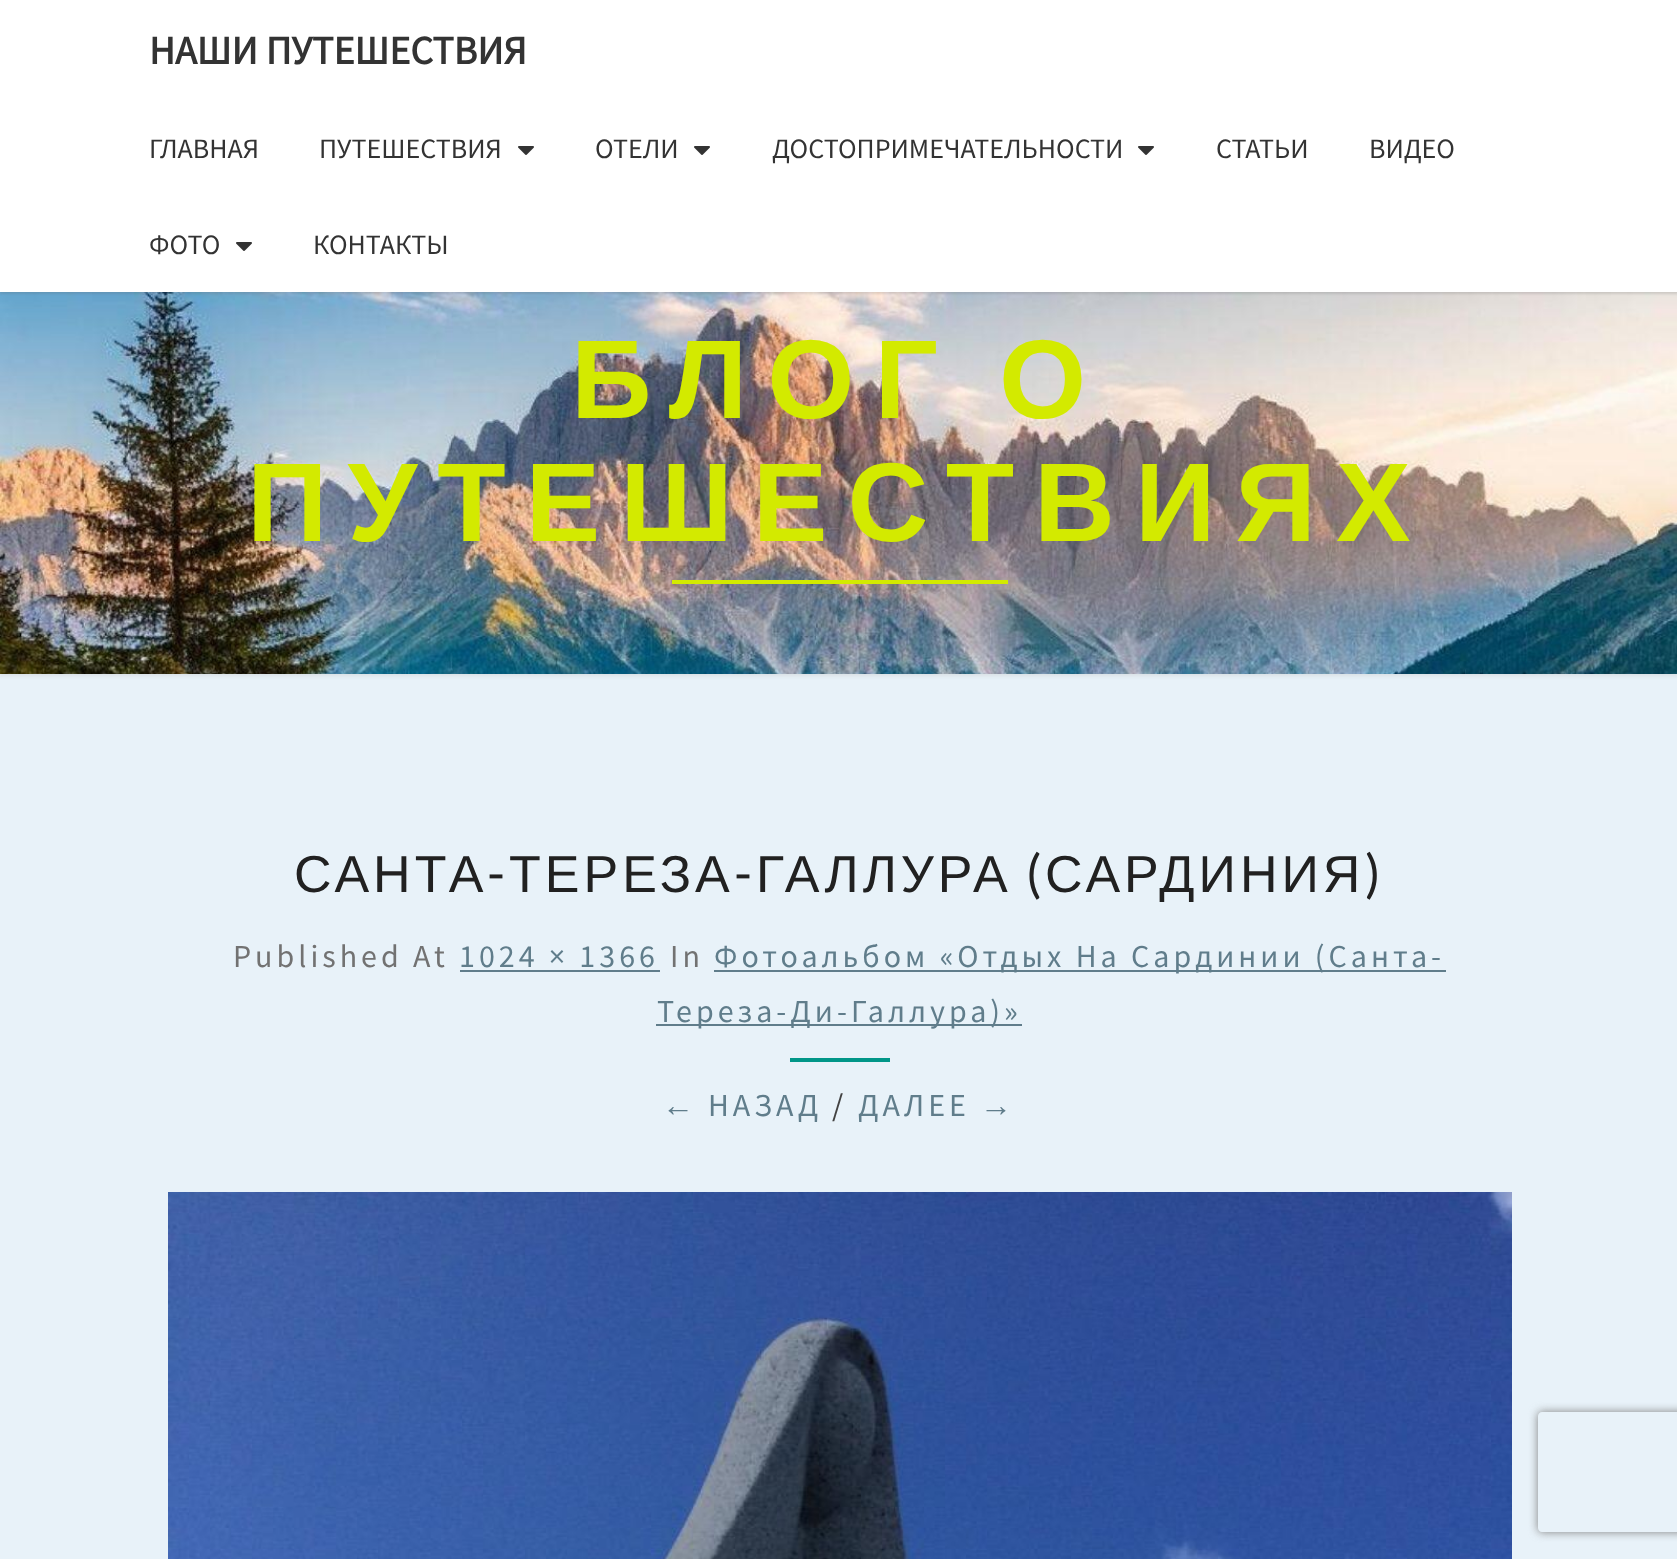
<!DOCTYPE html>
<meta charset="utf-8">
<style>body { margin: 0 } canvas { display: block }</style>
<canvas id="canvas" width="1677" height="1559"></canvas>
<img id="img1" src="img_02.png" hidden>
<img id="img2" src="img_01.png" hidden>
<img id="img3" src="img_03.png" hidden>
<script>
window.onload = function () {
	const canvas = document.getElementById("canvas");
	const ctx = canvas.getContext("2d");
	ctx.miterLimit = 4;
	ctx.fontKerning = "normal";
	function txt(s, x, y) {
		ctx.fillText(s, x, y);
	}
	function fill(x, y, w, h) {
		ctx.fillRect(x, y, w, h);
	}
	function img(id, x, y, w, h) {
		ctx.drawImage(document.getElementById(id), x, y, w, h);
	}

	ctx.fillStyle = "#E8F2F9";
	fill(0, 0, 1677, 1559);
	ctx.fillStyle = "rgba(182, 182, 182, 0.3)";
	ctx.filter = "blur(2px)";
	ctx.beginPath();
	ctx.rect(-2, 290, 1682, 386);
	ctx.fill();
	ctx.filter = "none";
	img("img1", 0, 292, 1677, 382);
	ctx.fillStyle = "rgba(100, 100, 100, 0.2)";
	ctx.filter = "blur(1px)";
	ctx.beginPath();
	ctx.rect(0, 2, 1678, 292);
	ctx.fill();
	ctx.filter = "none";
	ctx.fillStyle = "#FFFFFF";
	fill(0, 0, 1677, 292);
	img("img2", 518, 146, 16, 9);
	img("img2", 694, 146, 16, 9);
	img("img2", 1138, 146, 16, 9);
	img("img2", 236, 242, 16, 9);
	ctx.fillStyle = "#D3EA00";
	fill(672, 580, 336, 4);
	ctx.fillStyle = "#607D8B";
	fill(460, 970, 200, 2);
	fill(714, 970, 732, 2);
	fill(656, 1024, 366, 2);
	ctx.fillStyle = "#009688";
	fill(790, 1058, 100, 4);
	img("img3", 168, 1192, 1344, 367);
	ctx.save();
	ctx.beginPath();
	ctx.moveTo(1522, 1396);
	ctx.lineTo(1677, 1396);
	ctx.lineTo(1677, 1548);
	ctx.lineTo(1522, 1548);
	ctx.closePath();
	ctx.moveTo(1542, 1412);
	ctx.lineTo(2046, 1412);
	ctx.bezierCurveTo(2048, 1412, 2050, 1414, 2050, 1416);
	ctx.lineTo(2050, 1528);
	ctx.bezierCurveTo(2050, 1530, 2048, 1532, 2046, 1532);
	ctx.lineTo(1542, 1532);
	ctx.bezierCurveTo(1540, 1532, 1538, 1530, 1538, 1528);
	ctx.lineTo(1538, 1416);
	ctx.bezierCurveTo(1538, 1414, 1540, 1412, 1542, 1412);
	ctx.closePath();
	ctx.clip("evenodd");
	ctx.fillStyle = "#808080";
	ctx.filter = "blur(5px)";
	ctx.beginPath();
	ctx.roundRect(1538, 1412, 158, 120, 4);
	ctx.fill();
	ctx.filter = "none";
	ctx.restore();
	ctx.font = "bold 40px Source Sans Pro";
	ctx.fillStyle = "#333333";
	txt("НАШИ ПУТЕШЕСТВИЯ", 149, 64);
	ctx.font = "28px Source Sans Pro";
	txt("ГЛАВНАЯ", 149, 158);
	txt("ПУТЕШЕСТВИЯ", 319, 158);
	txt("ОТЕЛИ", 595, 158);
	txt("ДОСТОПРИМЕЧАТЕЛЬНОСТИ", 772, 158);
	txt("СТАТЬИ", 1216, 158);
	txt("ВИДЕО", 1369, 158);
	txt("ФОТО", 149, 254);
	txt("КОНТАКТЫ", 313, 254);
	ctx.letterSpacing = "20px";
	ctx.wordSpacing = "-10px";
	ctx.font = "bold 112px Liberation Sans";
	ctx.fillStyle = "#D3EA00";
	txt("БЛОГ О", 571, 418);
	ctx.wordSpacing = "0px";
	txt("ПУТЕШЕСТВИЯХ", 247, 541);
	ctx.letterSpacing = "4px";
	ctx.font = "52px Liberation Sans";
	ctx.fillStyle = "#212121";
	txt("САНТА", 294, 892);
	ctx.font = "52px Lato";
	txt("-", 487, 892);
	ctx.font = "52px Liberation Sans";
	txt("ТЕРЕЗА", 509, 892);
	ctx.font = "52px Lato";
	txt("-", 734, 892);
	ctx.font = "52px Liberation Sans";
	txt("ГАЛЛУРА", 756, 892);
	ctx.font = "52px Lato";
	txt("(", 1026, 892);
	ctx.save();
	ctx.beginPath();
	ctx.rect(168, 844, 1344, 58);
	ctx.clip();
	ctx.font = "52px Liberation Sans";
	txt("САРДИНИЯ", 1045, 892);
	ctx.restore();
	txt(")", 1365, 892);
	ctx.font = "32px Source Sans Pro";
	ctx.fillStyle = "#727272";
	txt("Published At", 233, 967);
	ctx.fillStyle = "#607D8B";
	txt("1024 × 1366", 459, 967);
	ctx.fillStyle = "#727272";
	txt("In", 670, 967);
	ctx.fillStyle = "#607D8B";
	txt("Фотоальбом «Отдых На Сардинии (Санта-", 714, 967);
	txt("Тереза-Ди-Галлура)»", 657, 1022);
	ctx.font = "32px Liberation Sans";
	txt("←", 662, 1116);
	ctx.font = "32px Source Sans Pro";
	txt("НАЗАД", 708, 1116);
	ctx.fillStyle = "#424242";
	txt("/", 832, 1116);
	ctx.fillStyle = "#607D8B";
	txt("ДАЛЕЕ", 858, 1116);
	ctx.font = "32px Liberation Sans";
	txt("→", 980, 1116);
};
</script>
